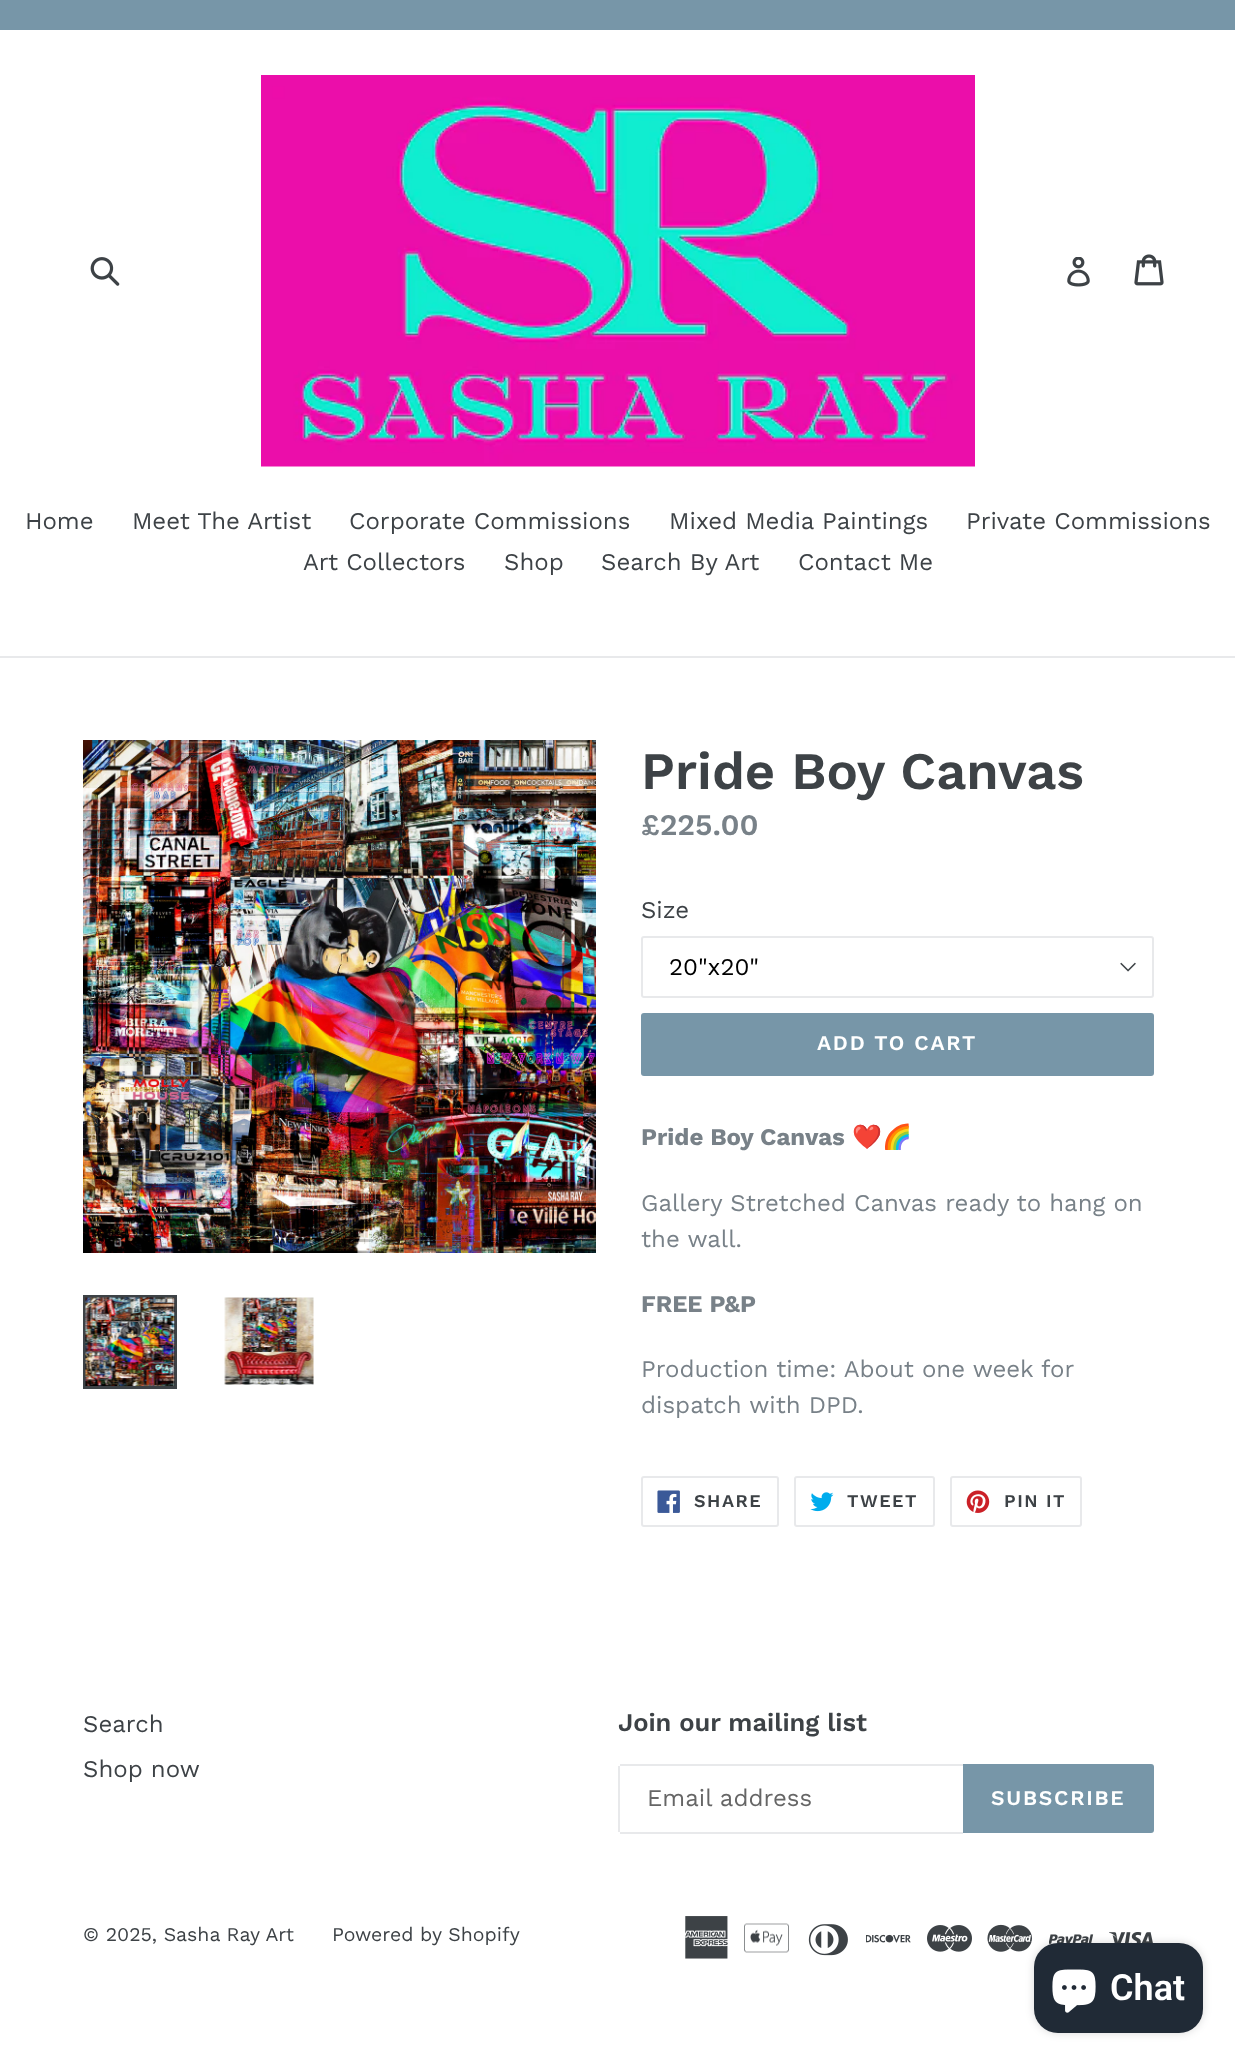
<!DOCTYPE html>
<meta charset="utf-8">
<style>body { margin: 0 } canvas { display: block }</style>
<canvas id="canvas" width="1235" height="2063"></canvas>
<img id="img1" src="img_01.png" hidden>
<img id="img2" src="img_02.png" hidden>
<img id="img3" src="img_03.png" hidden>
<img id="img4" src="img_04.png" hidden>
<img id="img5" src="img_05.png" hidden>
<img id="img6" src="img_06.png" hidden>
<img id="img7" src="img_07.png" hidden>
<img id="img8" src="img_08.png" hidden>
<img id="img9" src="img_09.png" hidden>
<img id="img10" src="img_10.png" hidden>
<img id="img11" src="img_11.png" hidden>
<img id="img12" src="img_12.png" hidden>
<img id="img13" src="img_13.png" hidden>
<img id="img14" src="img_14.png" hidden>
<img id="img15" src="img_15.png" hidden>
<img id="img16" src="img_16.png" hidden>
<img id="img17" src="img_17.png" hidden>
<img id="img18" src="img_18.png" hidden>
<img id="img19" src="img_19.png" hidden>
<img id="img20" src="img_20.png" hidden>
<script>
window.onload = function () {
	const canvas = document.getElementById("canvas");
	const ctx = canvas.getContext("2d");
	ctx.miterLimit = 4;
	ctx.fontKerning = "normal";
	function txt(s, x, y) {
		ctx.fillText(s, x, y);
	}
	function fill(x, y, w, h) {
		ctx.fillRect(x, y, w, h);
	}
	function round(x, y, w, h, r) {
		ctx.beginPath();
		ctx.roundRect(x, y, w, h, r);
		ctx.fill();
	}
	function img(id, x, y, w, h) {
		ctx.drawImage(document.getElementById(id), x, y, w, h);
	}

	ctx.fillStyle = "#FFFFFF";
	fill(0, 0, 1235, 2063);
	ctx.fillStyle = "#7796A8";
	fill(0, 0, 1235, 30);
	img("img1", 90, 257, 30, 29);
	img("img2", 261, 75, 714, 392);
	img("img3", 1067, 257, 23, 30);
	img("img4", 1134, 254, 30, 32);
	ctx.fillStyle = "#E8E9EB";
	fill(0, 656, 1235, 2);
	img("img5", 83, 740, 513, 513);
	ctx.strokeStyle = "#3D4246";
	ctx.lineWidth = 3;
	ctx.strokeRect(84.5, 1296.5, 91, 91);
	img("img6", 85, 1297, 90, 89);
	img("img7", 224, 1297, 90, 88);
	img("img8", 1120, 962, 16, 10);
	ctx.beginPath();
	ctx.roundRect(642, 937, 511, 60, 2);
	ctx.strokeStyle = "#E8E9EB";
	ctx.lineWidth = 2;
	ctx.stroke();
	ctx.fillStyle = "#7796A8";
	round(641, 1013, 513, 63, 3);
	ctx.beginPath();
	ctx.roundRect(642, 1477, 136, 49, 2);
	ctx.stroke();
	img("img9", 657, 1490, 23, 23);
	ctx.beginPath();
	ctx.roundRect(795, 1477, 139, 49, 2);
	ctx.stroke();
	img("img10", 810, 1492, 24, 20);
	ctx.beginPath();
	ctx.roundRect(951, 1477, 130, 49, 2);
	ctx.stroke();
	img("img11", 966, 1490, 24, 23);
	ctx.fillStyle = "#E8E9EB";
	fill(620, 1764, 343, 2);
	fill(620, 1832, 343, 2);
	fill(618, 1766, 2, 66);
	ctx.fillStyle = "#7796A8";
	ctx.beginPath();
	ctx.roundRect(963, 1764, 191, 69, [0, 3, 3, 0]);
	ctx.fill();
	img("img12", 685, 1916, 43, 43);
	img("img13", 744, 1923, 45, 30);
	img("img14", 808, 1924, 40, 32);
	img("img15", 866, 1934, 45, 9);
	img("img16", 927, 1925, 45, 27);
	img("img17", 987, 1924, 45, 28);
	img("img18", 1049, 1934, 45, 10);
	img("img19", 1109, 1932, 44, 11);
	ctx.fillStyle = "rgba(0, 0, 0, 0.15)";
	ctx.filter = "blur(4px)";
	ctx.beginPath();
	ctx.roundRect(1034, 1943, 169, 90, 24);
	ctx.fill();
	ctx.filter = "none";
	ctx.fillStyle = "#202A36";
	round(1034, 1943, 169, 90, 24);
	img("img20", 1052, 1969, 44, 44);
	ctx.font = "24px Work Sans";
	ctx.fillStyle = "#3D4246";
	txt("Home", 25, 529);
	txt("Meet The Artist", 132, 529);
	txt("Corporate Commissions", 349, 529);
	txt("Mixed Media Paintings", 669, 529);
	txt("Private Commissions", 966, 529);
	txt("Art Collectors", 303, 570);
	txt("Shop", 504, 570);
	txt("Search By Art", 601, 570);
	txt("Contact Me", 798, 570);
	ctx.font = "600 52.5px Work Sans";
	txt("Pride Boy Canvas", 641, 789);
	ctx.font = "600 30px Work Sans";
	ctx.fillStyle = "#788188";
	txt("£225.00", 641, 835);
	ctx.font = "24px Work Sans";
	ctx.fillStyle = "#3D4246";
	txt("Size", 641, 918);
	ctx.fillStyle = "#000000";
	txt("20\"x20\"", 669, 975);
	ctx.letterSpacing = "1.75px";
	ctx.font = "600 21px Work Sans";
	ctx.fillStyle = "#FFFFFF";
	txt("ADD TO CART", 817, 1050);
	ctx.letterSpacing = "0px";
	ctx.font = "bold 24px Work Sans";
	ctx.fillStyle = "#788188";
	txt("Pride Boy Canvas", 641, 1145);
	ctx.font = "bold 24px Noto Color Emoji";
	txt("❤️🌈", 852, 1145);
	ctx.font = "24px Work Sans";
	txt("Gallery Stretched Canvas ready to hang on", 641, 1211);
	txt("the wall.", 641, 1247);
	ctx.font = "bold 24px Work Sans";
	txt("FREE P&P", 641, 1312);
	ctx.font = "24px Work Sans";
	txt("Production time: About one week for", 641, 1377);
	txt("dispatch with DPD.", 641, 1413);
	ctx.letterSpacing = "1.5px";
	ctx.font = "600 18px Work Sans";
	ctx.fillStyle = "#3D4246";
	txt("SHARE", 694, 1507);
	txt("TWEET", 847, 1507);
	txt("PIN IT", 1004, 1507);
	ctx.letterSpacing = "0px";
	ctx.font = "24px Work Sans";
	txt("Search", 83, 1732);
	txt("Shop now", 83, 1777);
	ctx.font = "600 25.5px Work Sans";
	txt("Join our mailing list", 618, 1731);
	ctx.font = "24px Work Sans";
	ctx.fillStyle = "#666666";
	txt("Email address", 647, 1806);
	ctx.letterSpacing = "1.75px";
	ctx.font = "600 21px Work Sans";
	ctx.fillStyle = "#FFFFFF";
	txt("SUBSCRIBE", 991, 1805);
	ctx.letterSpacing = "0px";
	ctx.font = "19.5px Work Sans";
	ctx.fillStyle = "#3D4246";
	txt("© 2025, Sasha Ray Art", 83, 1941);
	txt("Powered by Shopify", 332, 1941);
	ctx.font = "600 36px Roboto";
	ctx.fillStyle = "#FFFFFF";
	txt("Chat", 1110, 2000);
};
</script>
